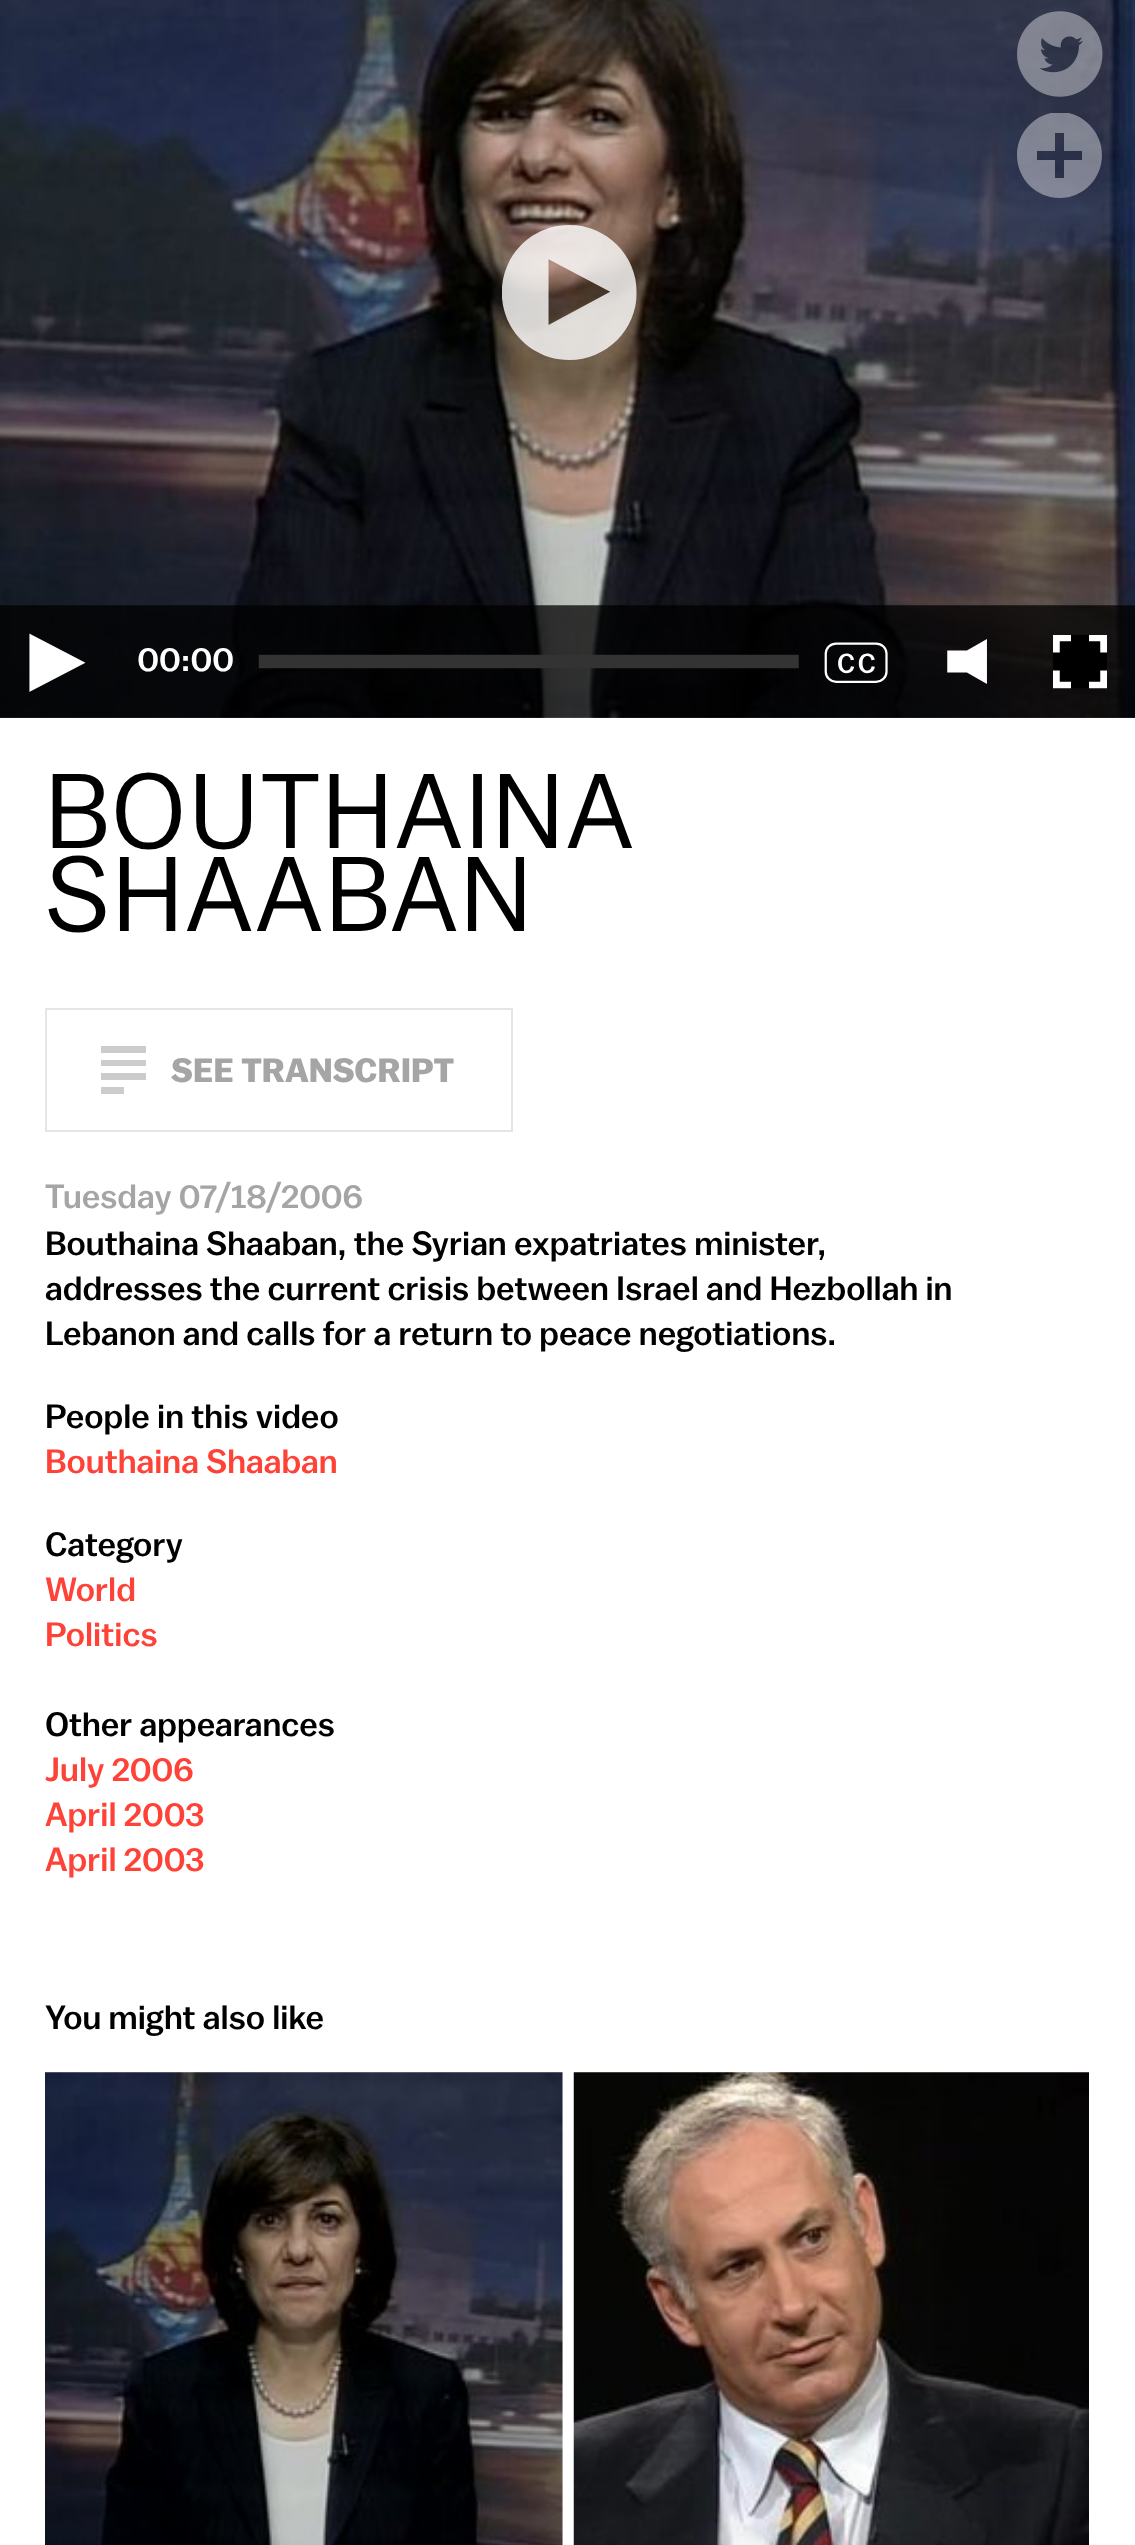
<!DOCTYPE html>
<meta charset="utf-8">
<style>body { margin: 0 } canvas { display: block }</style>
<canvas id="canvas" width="1135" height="2545"></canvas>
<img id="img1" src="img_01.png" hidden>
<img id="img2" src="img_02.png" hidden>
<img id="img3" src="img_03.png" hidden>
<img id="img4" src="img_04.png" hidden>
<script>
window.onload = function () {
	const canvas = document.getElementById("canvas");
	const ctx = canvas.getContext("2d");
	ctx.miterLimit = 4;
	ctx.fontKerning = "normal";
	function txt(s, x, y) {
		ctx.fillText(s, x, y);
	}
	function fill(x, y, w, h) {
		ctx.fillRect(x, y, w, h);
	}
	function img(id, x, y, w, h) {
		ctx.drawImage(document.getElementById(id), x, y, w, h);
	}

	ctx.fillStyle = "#FFFFFF";
	fill(0, 0, 1135, 2545);
	img("img1", 0, 0, 1135, 718);
	img("img2", 1017, 11, 86, 86);
	ctx.save();
	ctx.beginPath();
	ctx.rect(1017, 113, 86, 85);
	ctx.clip();
	ctx.fillStyle = "rgba(255, 255, 255, 0.4)";
	ctx.beginPath();
	ctx.moveTo(1060, 112);
	ctx.bezierCurveTo(1036, 112, 1017, 132, 1017, 155);
	ctx.bezierCurveTo(1017, 179, 1036, 198, 1060, 198);
	ctx.bezierCurveTo(1083, 198, 1102, 179, 1102, 155);
	ctx.bezierCurveTo(1102, 132, 1083, 112, 1060, 112);
	ctx.closePath();
	ctx.moveTo(1082, 160);
	ctx.lineTo(1064, 160);
	ctx.lineTo(1064, 178);
	ctx.lineTo(1055, 178);
	ctx.lineTo(1055, 160);
	ctx.lineTo(1037, 160);
	ctx.lineTo(1037, 151);
	ctx.lineTo(1055, 151);
	ctx.lineTo(1055, 133);
	ctx.lineTo(1064, 133);
	ctx.lineTo(1064, 151);
	ctx.lineTo(1082, 151);
	ctx.closePath();
	ctx.fill();
	ctx.restore();
	ctx.fillStyle = "#CCCCCC";
	ctx.beginPath();
	ctx.moveTo(972, 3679);
	ctx.lineTo(1017, 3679);
	ctx.lineTo(1017, 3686);
	ctx.lineTo(972, 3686);
	ctx.closePath();
	ctx.moveTo(972, 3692);
	ctx.lineTo(1017, 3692);
	ctx.lineTo(1017, 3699);
	ctx.lineTo(972, 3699);
	ctx.closePath();
	ctx.moveTo(972, 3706);
	ctx.lineTo(1017, 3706);
	ctx.lineTo(1017, 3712);
	ctx.lineTo(972, 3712);
	ctx.closePath();
	ctx.moveTo(972, 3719);
	ctx.lineTo(994, 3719);
	ctx.lineTo(994, 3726);
	ctx.lineTo(972, 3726);
	ctx.closePath();
	ctx.moveTo(101, 1046);
	ctx.lineTo(146, 1046);
	ctx.lineTo(146, 1053);
	ctx.lineTo(101, 1053);
	ctx.closePath();
	ctx.moveTo(101, 1060);
	ctx.lineTo(146, 1060);
	ctx.lineTo(146, 1066);
	ctx.lineTo(101, 1066);
	ctx.closePath();
	ctx.moveTo(101, 1073);
	ctx.lineTo(146, 1073);
	ctx.lineTo(146, 1080);
	ctx.lineTo(101, 1080);
	ctx.closePath();
	ctx.moveTo(101, 1087);
	ctx.lineTo(124, 1087);
	ctx.lineTo(124, 1094);
	ctx.lineTo(101, 1094);
	ctx.closePath();
	ctx.fill();
	ctx.strokeStyle = "#E5E5E5";
	ctx.lineWidth = 2;
	ctx.strokeRect(46, 1009, 466, 122);
	ctx.fillStyle = "#F2F2F2";
	fill(45, 2072, 518, 473);
	img("img3", 45, 2072, 518, 473);
	img("img4", 573, 2072, 516, 473);
	ctx.letterSpacing = "2.25px";
	ctx.font = "105.75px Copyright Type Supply";
	ctx.fillStyle = "#000000";
	txt("BOUTHAINA", 45, 848);
	txt("SHAABAN", 45, 931);
	ctx.letterSpacing = "0px";
	ctx.font = "600 33.75px Copyright Type Supply";
	ctx.fillStyle = "#A5A5A5";
	txt("SEE TRANSCRIPT", 171, 1082);
	ctx.font = "500 33.75px Copyright Type Supply";
	txt("Tuesday 07/18/2006", 45, 1208);
	ctx.fillStyle = "#000000";
	txt("Bouthaina Shaaban, the Syrian expatriates minister,", 45, 1255);
	txt("addresses the current crisis between Israel and Hezbollah in", 45, 1300);
	txt("Lebanon and calls for a return to peace negotiations.", 45, 1345);
	txt("People in this video", 45, 1428);
	ctx.fillStyle = "#FF4237";
	txt("Bouthaina Shaaban", 45, 1473);
	ctx.fillStyle = "#000000";
	txt("Category", 45, 1556);
	ctx.fillStyle = "#FF4237";
	txt("World", 45, 1601);
	txt("Politics", 45, 1646);
	ctx.fillStyle = "#000000";
	txt("Other appearances", 45, 1736);
	ctx.fillStyle = "#FF4237";
	txt("July 2006", 45, 1781);
	txt("April 2003", 45, 1826);
	txt("April 2003", 45, 1871);
	ctx.fillStyle = "#000000";
	txt("You might also like", 45, 2029);
};
</script>
